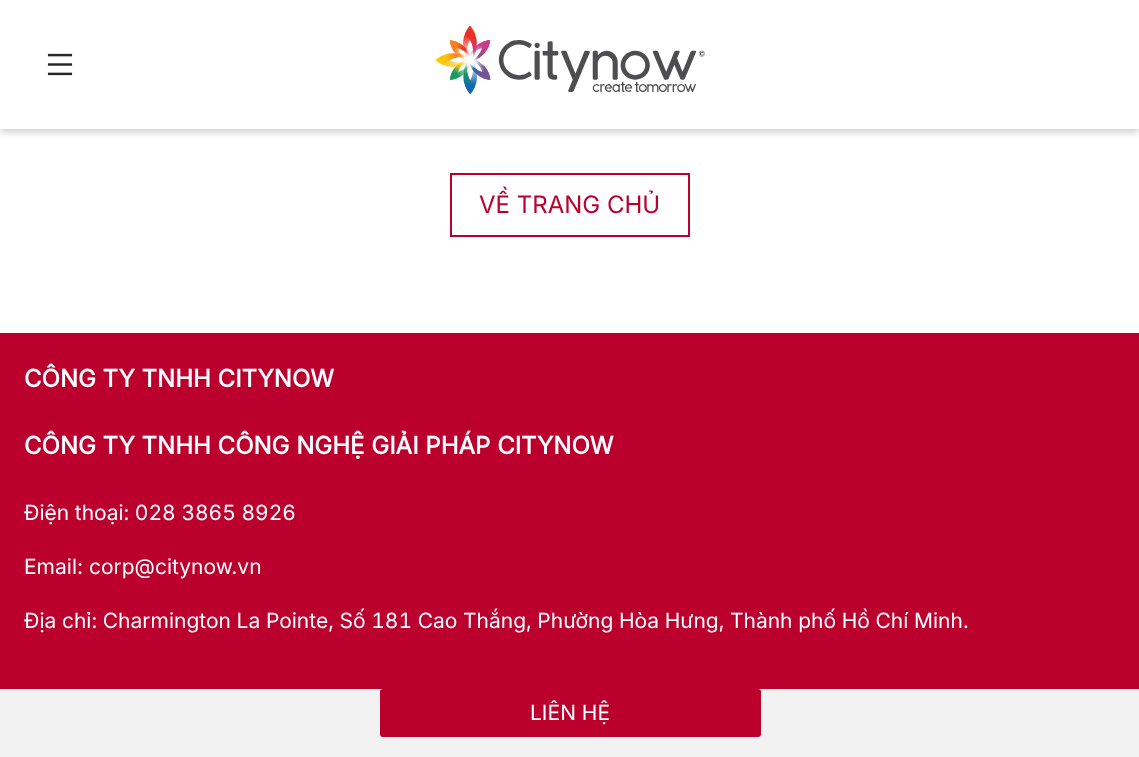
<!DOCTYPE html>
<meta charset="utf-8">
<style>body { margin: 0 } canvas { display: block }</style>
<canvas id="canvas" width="1139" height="757"></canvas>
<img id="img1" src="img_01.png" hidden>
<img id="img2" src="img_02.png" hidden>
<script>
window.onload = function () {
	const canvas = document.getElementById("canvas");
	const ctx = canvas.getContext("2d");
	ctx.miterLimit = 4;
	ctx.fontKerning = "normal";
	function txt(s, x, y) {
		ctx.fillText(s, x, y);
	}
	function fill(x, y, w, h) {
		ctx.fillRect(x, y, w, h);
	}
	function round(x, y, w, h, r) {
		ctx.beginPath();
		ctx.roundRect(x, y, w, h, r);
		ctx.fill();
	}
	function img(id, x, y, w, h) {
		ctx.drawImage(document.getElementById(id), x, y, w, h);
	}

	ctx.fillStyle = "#FFFFFF";
	fill(0, 0, 1139, 757);
	ctx.fillStyle = "rgba(32, 33, 36, 0.28)";
	ctx.filter = "blur(4.5px)";
	ctx.beginPath();
	ctx.rect(0, 2, 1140, 129);
	ctx.fill();
	ctx.filter = "none";
	ctx.fillStyle = "#FFFFFF";
	fill(0, 0, 1139, 129);
	img("img1", 47, 53, 26, 23);
	img("img2", 435, 26, 270, 68);
	ctx.strokeStyle = "#BC002D";
	ctx.lineWidth = 2;
	ctx.strokeRect(451, 174, 238, 62);
	ctx.fillStyle = "#BC002D";
	fill(0, 333, 1139, 356);
	ctx.fillStyle = "#F2F2F2";
	fill(0, 689, 1139, 68);
	ctx.fillStyle = "#BC002D";
	round(380, 689, 381, 48, 3);
	ctx.font = "24px Inter";
	txt("VỀ TRANG CHỦ", 479, 213);
	ctx.font = "bold 24px Inter";
	ctx.fillStyle = "#FFFFFF";
	txt("CÔNG TY TNHH CITYNOW", 24, 387);
	txt("CÔNG TY TNHH CÔNG NGHỆ GIẢI PHÁP CITYNOW", 24, 454);
	ctx.font = "21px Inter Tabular";
	txt("Điện thoại: 028 3865 8926", 24, 520);
	ctx.font = "21px Inter";
	txt("Email: corp@citynow.vn", 24, 574);
	ctx.font = "21px Inter Tabular";
	txt("Địa chỉ: Charmington La Pointe, Số 181 Cao Thắng, Phường Hòa Hưng, Thành phố Hồ Chí Minh.", 24, 628);
	ctx.font = "21px Inter";
	txt("LIÊN HỆ", 530, 720);
};
</script>
